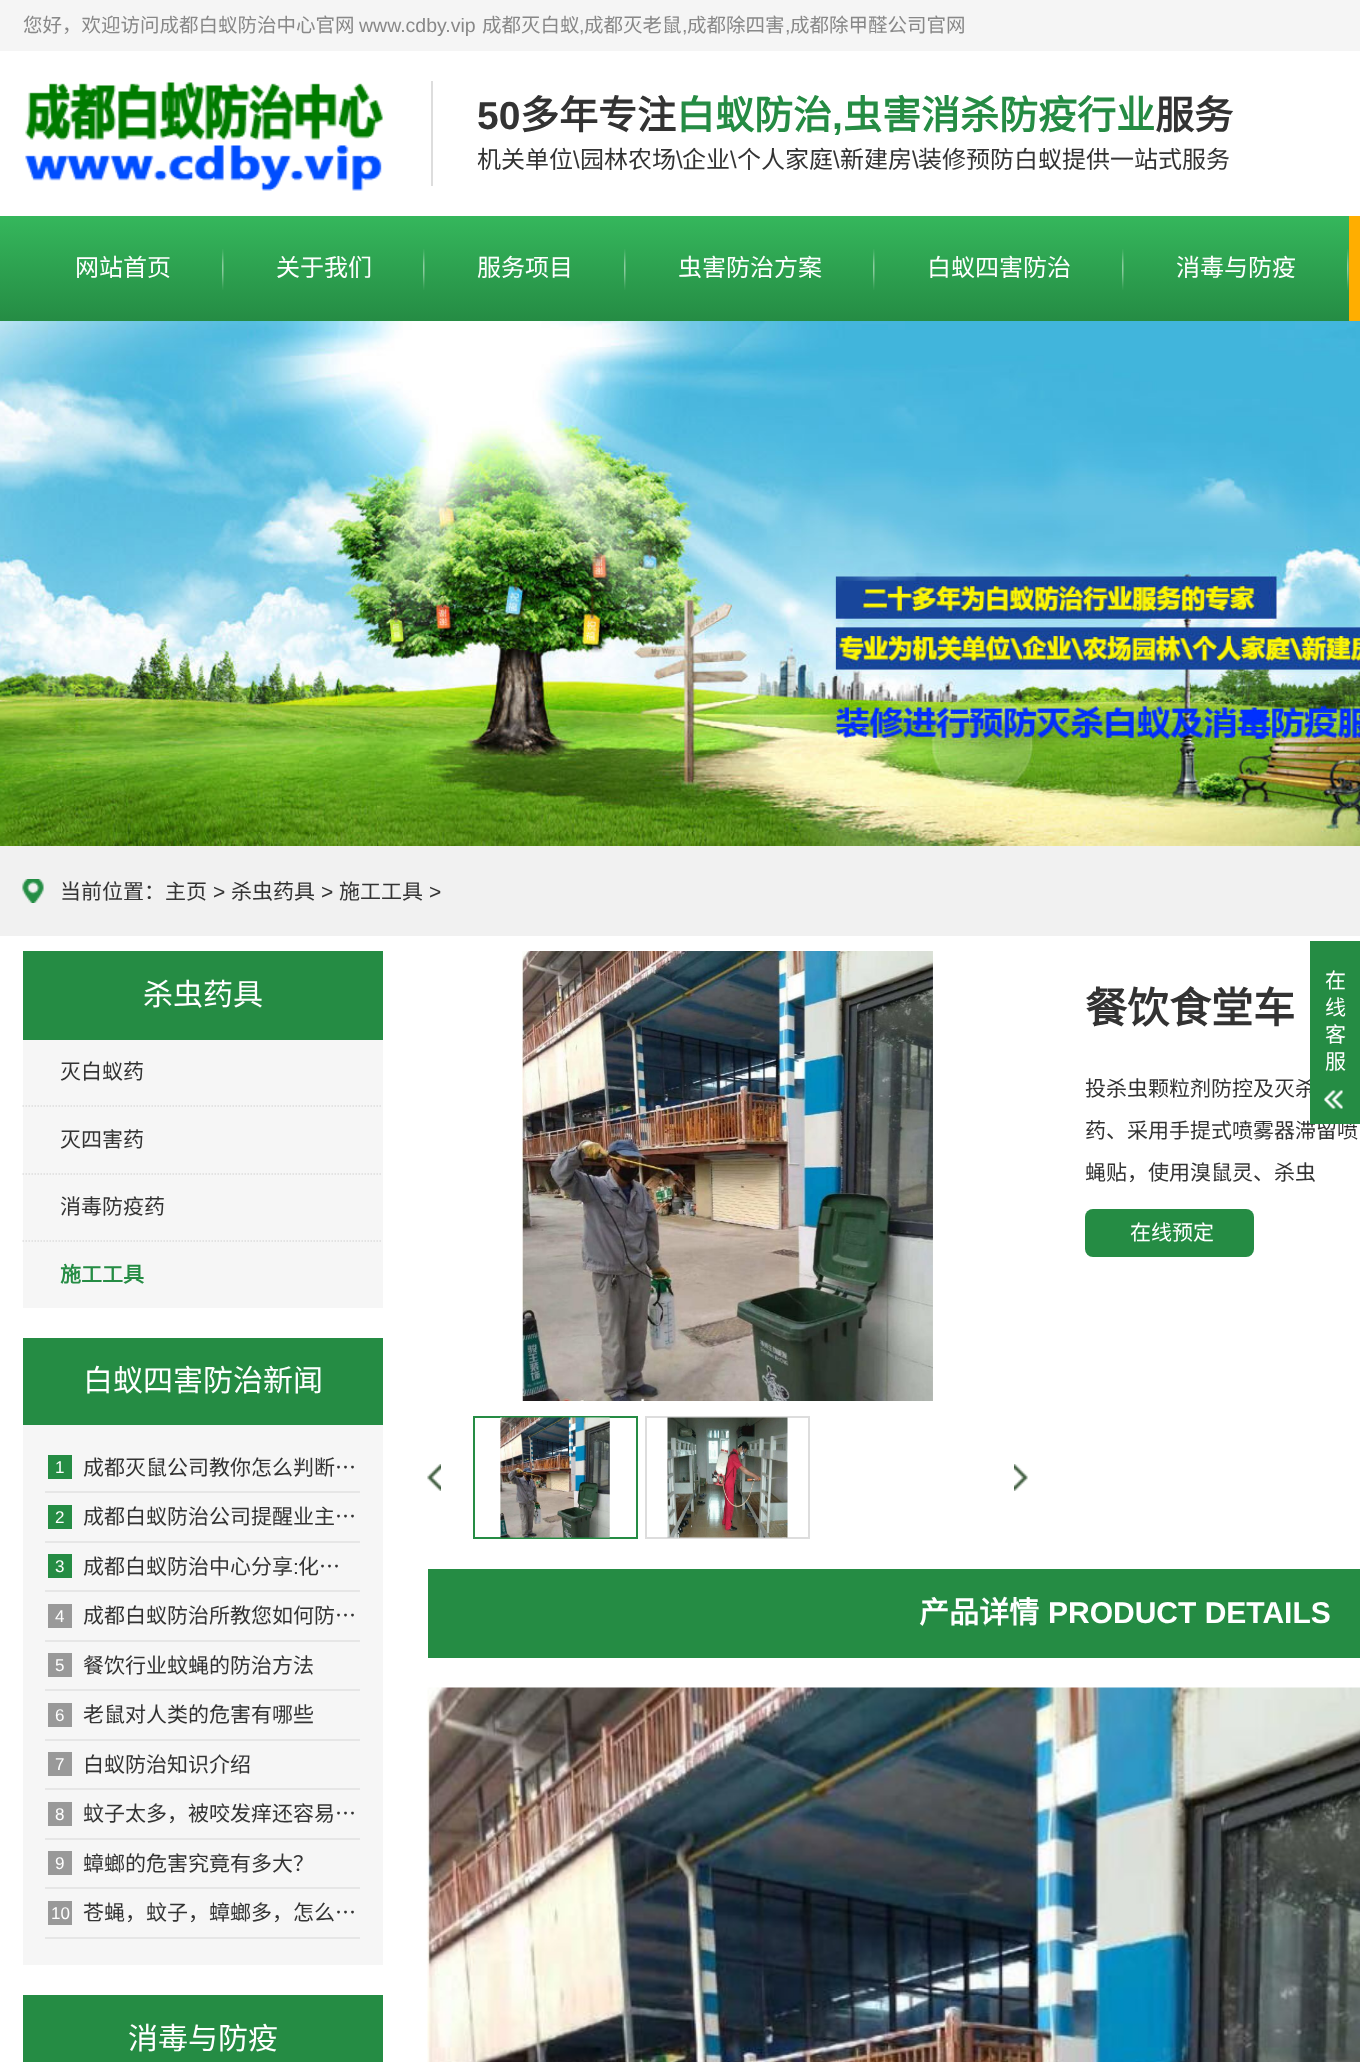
<!DOCTYPE html>
<meta charset="utf-8">
<style>body { margin: 0 } canvas { display: block }</style>
<canvas id="canvas" width="1360" height="2062"></canvas>
<img id="img1" src="img_01.png" hidden>
<img id="img2" src="img_02.png" hidden>
<img id="img3" src="img_03.png" hidden>
<img id="img4" src="img_04.png" hidden>
<img id="img5" src="img_06.png" hidden>
<img id="img6" src="img_07.png" hidden>
<img id="img7" src="img_08.png" hidden>
<img id="img8" src="img_09.png" hidden>
<img id="img9" src="img_10.png" hidden>
<img id="img10" src="img_11.png" hidden>
<img id="img11" src="img_05.png" hidden>
<script>
window.onload = function () {
	const canvas = document.getElementById("canvas");
	const ctx = canvas.getContext("2d");
	ctx.miterLimit = 4;
	ctx.fontKerning = "normal";
	function txt(s, x, y) {
		ctx.fillText(s, x, y);
	}
	function fill(x, y, w, h) {
		ctx.fillRect(x, y, w, h);
	}
	function round(x, y, w, h, r) {
		ctx.beginPath();
		ctx.roundRect(x, y, w, h, r);
		ctx.fill();
	}
	function img(id, x, y, w, h) {
		ctx.drawImage(document.getElementById(id), x, y, w, h);
	}
	let gradient;

	ctx.fillStyle = "#FFFFFF";
	fill(0, 0, 1360, 2062);
	ctx.fillStyle = "#F5F5F5";
	fill(0, 0, 1360, 51);
	img("img1", 25, 82, 358, 109);
	ctx.fillStyle = "#DDDDDD";
	fill(431, 81, 2, 105);
	gradient = ctx.createLinearGradient(923, 321, 923, 216);
	gradient.addColorStop(0, "#258C44");
	gradient.addColorStop(1, "#35B75C");
	ctx.fillStyle = gradient;
	fill(0, 216, 1349, 105);
	img("img2", 222, 249, 2, 41);
	img("img2", 423, 249, 2, 41);
	img("img2", 624, 249, 2, 41);
	img("img2", 873, 249, 2, 41);
	img("img2", 1122, 249, 2, 41);
	img("img2", 1347, 249, 2, 41);
	ctx.fillStyle = "#FFAE00";
	fill(1349, 216, 11, 105);
	img("img3", 0, 321, 1360, 525);
	ctx.fillStyle = "#F1F1F1";
	fill(0, 846, 1360, 90);
	img("img4", 22, 879, 22, 24);
	ctx.fillStyle = "#F6F6F6";
	fill(23, 1040, 360, 268);
	ctx.fillStyle = "#258C44";
	fill(23, 951, 360, 89);
	ctx.beginPath();
	ctx.moveTo(22.5, 1106);
	ctx.lineTo(382.5, 1106);
	ctx.strokeStyle = "#DDDDDD";
	ctx.lineWidth = 1.5;
	ctx.setLineDash([1.5, 1.5]);
	ctx.stroke();
	ctx.beginPath();
	ctx.moveTo(22.5, 1174);
	ctx.lineTo(382.5, 1174);
	ctx.stroke();
	ctx.beginPath();
	ctx.moveTo(22.5, 1241);
	ctx.lineTo(382.5, 1241);
	ctx.stroke();
	ctx.fillStyle = "#F6F6F6";
	fill(23, 1425, 360, 540);
	ctx.fillStyle = "#258C44";
	fill(23, 1338, 360, 87);
	ctx.fillStyle = "#E6E6E6";
	fill(45, 1491, 315, 2);
	ctx.fillStyle = "#258C44";
	fill(48, 1455, 24, 24);
	ctx.fillStyle = "#E6E6E6";
	fill(45, 1541, 315, 2);
	ctx.fillStyle = "#258C44";
	fill(48, 1505, 24, 24);
	ctx.fillStyle = "#E6E6E6";
	fill(45, 1590, 315, 2);
	ctx.fillStyle = "#258C44";
	fill(48, 1554, 24, 24);
	ctx.fillStyle = "#E6E6E6";
	fill(45, 1640, 315, 2);
	ctx.fillStyle = "#999999";
	fill(48, 1604, 24, 24);
	ctx.fillStyle = "#E6E6E6";
	fill(45, 1689, 315, 2);
	ctx.fillStyle = "#999999";
	fill(48, 1653, 24, 24);
	ctx.fillStyle = "#E6E6E6";
	fill(45, 1739, 315, 2);
	ctx.fillStyle = "#999999";
	fill(48, 1703, 24, 24);
	ctx.fillStyle = "#E6E6E6";
	fill(45, 1788, 315, 2);
	ctx.fillStyle = "#999999";
	fill(48, 1752, 24, 24);
	ctx.fillStyle = "#E6E6E6";
	fill(45, 1838, 315, 2);
	ctx.fillStyle = "#999999";
	fill(48, 1802, 24, 24);
	ctx.fillStyle = "#E6E6E6";
	fill(45, 1887, 315, 2);
	ctx.fillStyle = "#999999";
	fill(48, 1851, 24, 24);
	ctx.fillStyle = "#E6E6E6";
	fill(45, 1937, 315, 2);
	ctx.fillStyle = "#999999";
	fill(48, 1901, 24, 24);
	ctx.fillStyle = "#258C44";
	fill(23, 1995, 360, 67);
	img("img5", 522, 951, 411, 450);
	img("img6", 427, 1464, 14, 27);
	ctx.strokeStyle = "#258C44";
	ctx.lineWidth = 2;
	ctx.setLineDash([]);
	ctx.strokeRect(474, 1417, 163, 121);
	img("img7", 500, 1417, 110, 121);
	ctx.strokeStyle = "#DDDDDD";
	ctx.strokeRect(646, 1417, 163, 121);
	img("img8", 667, 1417, 121, 121);
	img("img9", 1014, 1464, 14, 27);
	round(1085, 1209, 169, 48, 8);
	fill(428, 1569, 932, 89);
	img("img10", 427, 1687, 933, 375);
	ctx.font = "19.5px Noto Sans CJK SC";
	ctx.fillStyle = "#888888";
	txt("您好，欢迎访问成都白蚁防治中心官网", 23, 32);
	ctx.font = "19.5px Liberation Sans";
	txt("www.cdby.vip", 359, 32);
	ctx.font = "19.5px Noto Sans CJK SC";
	txt("成都灭白蚁", 482, 32);
	ctx.font = "19.5px Liberation Sans";
	txt(",", 579, 32);
	ctx.font = "19.5px Noto Sans CJK SC";
	txt("成都灭老鼠", 584, 32);
	ctx.font = "19.5px Liberation Sans";
	txt(",", 682, 32);
	ctx.font = "19.5px Noto Sans CJK SC";
	txt("成都除四害", 687, 32);
	ctx.font = "19.5px Liberation Sans";
	txt(",", 785, 32);
	ctx.font = "19.5px Noto Sans CJK SC";
	txt("成都除甲醛公司官网", 790, 32);
	ctx.font = "bold 39px Liberation Sans";
	ctx.fillStyle = "#333333";
	txt("50", 477, 129);
	ctx.font = "bold 39px Noto Sans CJK SC";
	txt("多年专注", 520, 129);
	ctx.fillStyle = "#258C44";
	txt("白蚁防治", 676, 129);
	ctx.font = "bold 39px Liberation Sans";
	txt(",", 832, 129);
	ctx.font = "bold 39px Noto Sans CJK SC";
	txt("虫害消杀防疫行业", 843, 129);
	ctx.fillStyle = "#333333";
	txt("服务", 1155, 129);
	ctx.font = "24px Noto Sans CJK SC";
	txt("机关单位", 477, 168);
	ctx.font = "24px Liberation Sans";
	txt("\\", 573, 168);
	ctx.font = "24px Noto Sans CJK SC";
	txt("园林农场", 580, 168);
	ctx.font = "24px Liberation Sans";
	txt("\\", 676, 168);
	ctx.font = "24px Noto Sans CJK SC";
	txt("企业", 682, 168);
	ctx.font = "24px Liberation Sans";
	txt("\\", 730, 168);
	ctx.font = "24px Noto Sans CJK SC";
	txt("个人家庭", 737, 168);
	ctx.font = "24px Liberation Sans";
	txt("\\", 833, 168);
	ctx.font = "24px Noto Sans CJK SC";
	txt("新建房", 840, 168);
	ctx.font = "24px Liberation Sans";
	txt("\\", 912, 168);
	ctx.font = "24px Noto Sans CJK SC";
	txt("装修预防白蚁提供一站式服务", 918, 168);
	ctx.fillStyle = "#FFFFFF";
	txt("网站首页", 75, 276);
	txt("关于我们", 276, 276);
	txt("服务项目", 477, 276);
	txt("虫害防治方案", 678, 276);
	txt("白蚁四害防治", 927, 276);
	txt("消毒与防疫", 1176, 276);
	ctx.font = "21px Noto Sans CJK SC";
	ctx.fillStyle = "#333333";
	txt("当前位置：主页", 60, 899);
	ctx.font = "21px Liberation Sans";
	txt(">", 213, 899);
	ctx.font = "21px Noto Sans CJK SC";
	txt("杀虫药具", 231, 899);
	ctx.font = "21px Liberation Sans";
	txt(">", 321, 899);
	ctx.font = "21px Noto Sans CJK SC";
	txt("施工工具", 339, 899);
	ctx.font = "21px Liberation Sans";
	txt(">", 429, 899);
	ctx.font = "30px Noto Sans CJK SC";
	ctx.fillStyle = "#FFFFFF";
	txt("杀虫药具", 143, 1005);
	ctx.font = "21px Noto Sans CJK SC";
	ctx.fillStyle = "#333333";
	txt("灭白蚁药", 60, 1079);
	txt("灭四害药", 60, 1147);
	txt("消毒防疫药", 60, 1214);
	ctx.font = "bold 21px Noto Sans CJK SC";
	ctx.fillStyle = "#258C44";
	txt("施工工具", 60, 1282);
	ctx.font = "30px Noto Sans CJK SC";
	ctx.fillStyle = "#FFFFFF";
	txt("白蚁四害防治新闻", 83, 1391);
	ctx.font = "17px Liberation Sans";
	txt("1", 55, 1473);
	ctx.font = "21px Noto Sans CJK SC";
	ctx.fillStyle = "#333333";
	txt("成都灭鼠公司教你怎么判断…", 83, 1475);
	ctx.font = "17px Liberation Sans";
	ctx.fillStyle = "#FFFFFF";
	txt("2", 55, 1523);
	ctx.font = "21px Noto Sans CJK SC";
	ctx.fillStyle = "#333333";
	txt("成都白蚁防治公司提醒业主…", 83, 1524);
	ctx.font = "17px Liberation Sans";
	ctx.fillStyle = "#FFFFFF";
	txt("3", 55, 1572);
	ctx.font = "21px Noto Sans CJK SC";
	ctx.fillStyle = "#333333";
	txt("成都白蚁防治中心分享", 83, 1574);
	ctx.font = "21px Liberation Sans";
	txt(":", 293, 1574);
	ctx.font = "21px Noto Sans CJK SC";
	txt("化…", 298, 1574);
	ctx.font = "17px Liberation Sans";
	ctx.fillStyle = "#FFFFFF";
	txt("4", 55, 1622);
	ctx.font = "21px Noto Sans CJK SC";
	ctx.fillStyle = "#333333";
	txt("成都白蚁防治所教您如何防…", 83, 1623);
	ctx.font = "17px Liberation Sans";
	ctx.fillStyle = "#FFFFFF";
	txt("5", 55, 1671);
	ctx.font = "21px Noto Sans CJK SC";
	ctx.fillStyle = "#333333";
	txt("餐饮行业蚊蝇的防治方法", 83, 1673);
	ctx.font = "17px Liberation Sans";
	ctx.fillStyle = "#FFFFFF";
	txt("6", 55, 1721);
	ctx.font = "21px Noto Sans CJK SC";
	ctx.fillStyle = "#333333";
	txt("老鼠对人类的危害有哪些", 83, 1722);
	ctx.font = "17px Liberation Sans";
	ctx.fillStyle = "#FFFFFF";
	txt("7", 55, 1770);
	ctx.font = "21px Noto Sans CJK SC";
	ctx.fillStyle = "#333333";
	txt("白蚁防治知识介绍", 83, 1772);
	ctx.font = "17px Liberation Sans";
	ctx.fillStyle = "#FFFFFF";
	txt("8", 55, 1820);
	ctx.font = "21px Noto Sans CJK SC";
	ctx.fillStyle = "#333333";
	txt("蚊子太多，被咬发痒还容易…", 83, 1821);
	ctx.font = "17px Liberation Sans";
	ctx.fillStyle = "#FFFFFF";
	txt("9", 55, 1869);
	ctx.font = "21px Noto Sans CJK SC";
	ctx.fillStyle = "#333333";
	txt("蟑螂的危害究竟有多大？", 83, 1871);
	ctx.font = "17px Liberation Sans";
	ctx.fillStyle = "#FFFFFF";
	txt("10", 51, 1919);
	ctx.font = "21px Noto Sans CJK SC";
	ctx.fillStyle = "#333333";
	txt("苍蝇，蚊子，蟑螂多，怎么…", 83, 1920);
	ctx.font = "30px Noto Sans CJK SC";
	ctx.fillStyle = "#FFFFFF";
	txt("消毒与防疫", 128, 2049);
	ctx.font = "bold 42px Noto Sans CJK SC";
	ctx.fillStyle = "#333333";
	txt("餐饮食堂车", 1085, 1023);
	ctx.font = "21px Noto Sans CJK SC";
	txt("投杀虫颗粒剂防控及灭杀", 1085, 1096);
	txt("药、采用手提式喷雾器滞留喷", 1085, 1138);
	ctx.fillStyle = "#258C44";
	fill(1310, 941, 50, 183);
	ctx.fillStyle = "#FFFFFF";
	txt("服", 1325, 1069);
	txt("客", 1325, 1042);
	txt("线", 1325, 1015);
	txt("在", 1325, 988);
	img("img11", 1324, 1090, 19, 19);
	ctx.fillStyle = "#333333";
	txt("蝇贴，使用溴鼠灵、杀虫", 1085, 1180);
	ctx.fillStyle = "#FFFFFF";
	txt("在线预定", 1130, 1240);
	ctx.font = "bold 30px Noto Sans CJK SC";
	txt("产品详情", 919, 1623);
	ctx.font = "bold 30px Liberation Sans";
	txt("PRODUCT DETAILS", 1048, 1623);
};
</script>
